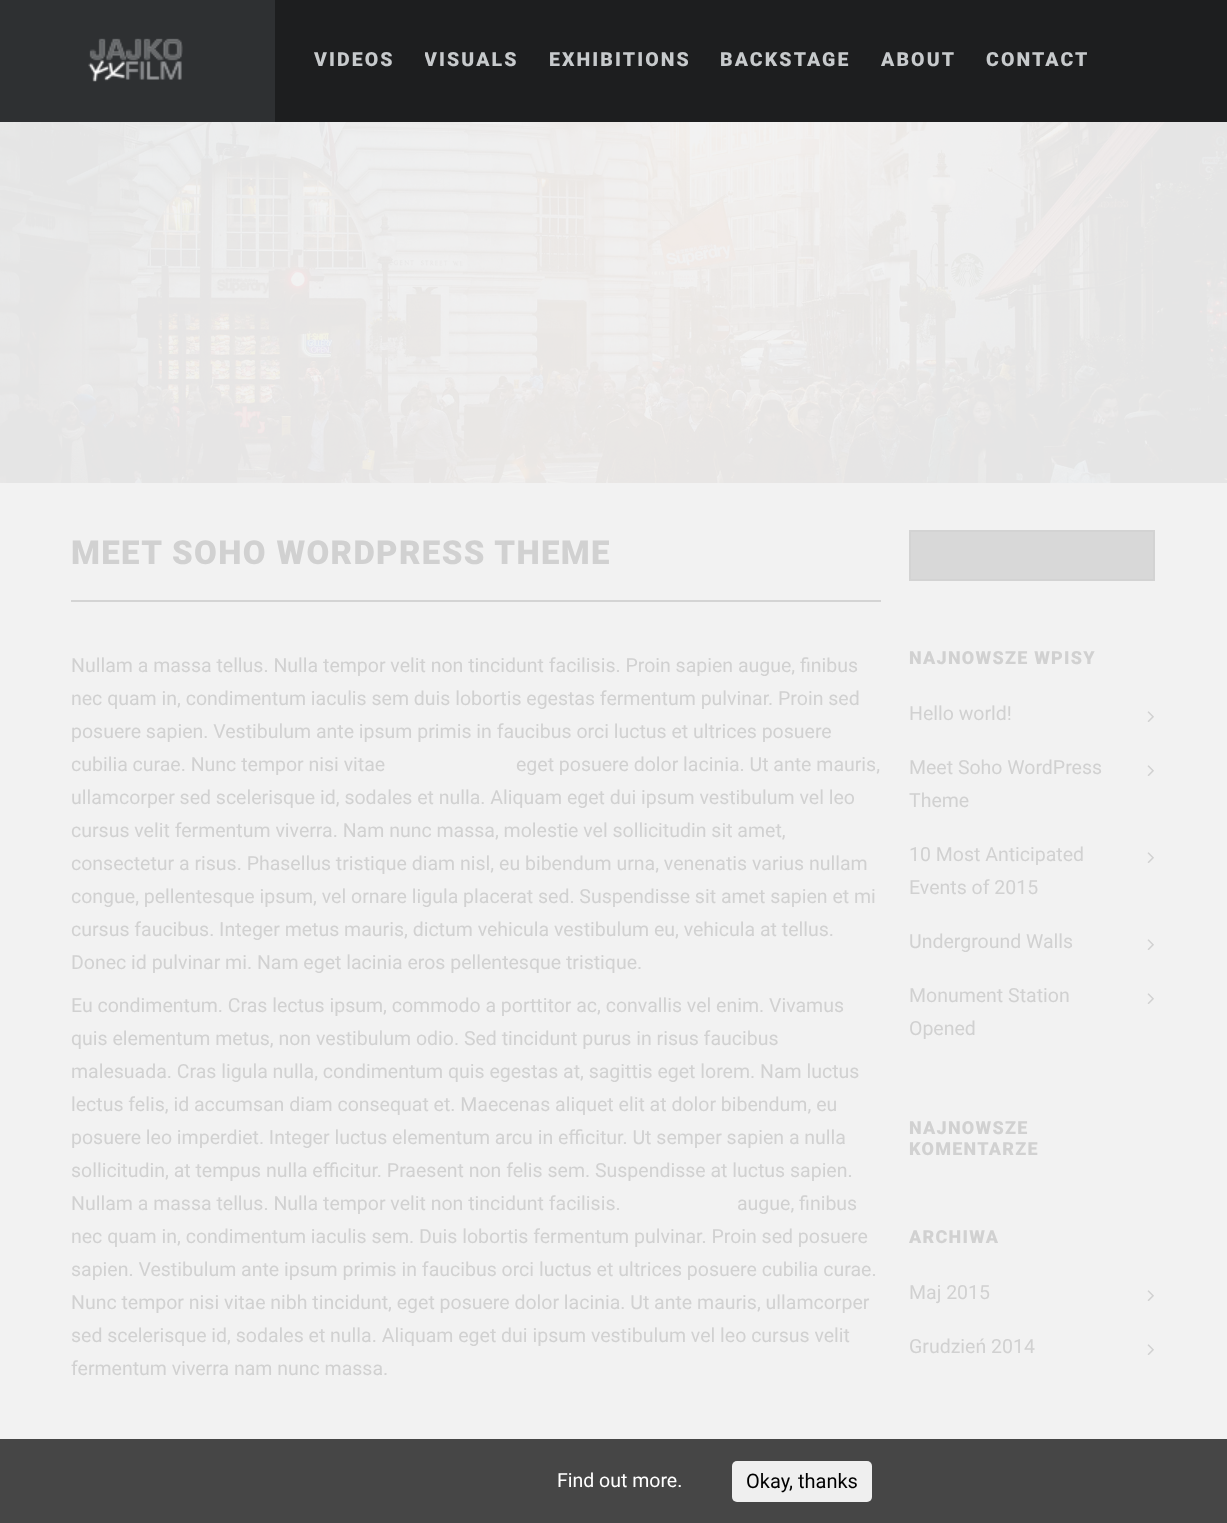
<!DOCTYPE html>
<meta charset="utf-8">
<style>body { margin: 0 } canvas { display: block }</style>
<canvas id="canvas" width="1227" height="1523"></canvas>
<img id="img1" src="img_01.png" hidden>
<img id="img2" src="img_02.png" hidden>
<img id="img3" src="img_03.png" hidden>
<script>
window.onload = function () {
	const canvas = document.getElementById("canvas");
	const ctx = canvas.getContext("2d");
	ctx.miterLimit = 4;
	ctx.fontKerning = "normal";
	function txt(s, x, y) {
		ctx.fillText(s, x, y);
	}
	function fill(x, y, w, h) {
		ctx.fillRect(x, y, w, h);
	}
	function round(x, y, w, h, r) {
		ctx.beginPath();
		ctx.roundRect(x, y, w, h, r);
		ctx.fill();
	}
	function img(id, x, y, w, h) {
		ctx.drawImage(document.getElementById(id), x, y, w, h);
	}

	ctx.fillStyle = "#F2F2F2";
	fill(0, 0, 1227, 1523);
	ctx.fillStyle = "#1D1E1F";
	fill(275, 0, 952, 122);
	ctx.fillStyle = "#2E3032";
	fill(0, 0, 275, 122);
	img("img1", 88, 38, 95, 44);
	img("img2", 0, 122, 1227, 361);
	ctx.fillStyle = "#D4D4D4";
	fill(71, 600, 810, 2);
	ctx.fillStyle = "#D8D8D8";
	ctx.beginPath();
	ctx.rect(910, 531, 244, 49);
	ctx.fill();
	ctx.strokeStyle = "#D3D3D3";
	ctx.lineWidth = 2;
	ctx.stroke();
	img("img3", 1147, 711, 7, 11);
	img("img3", 1147, 765, 7, 11);
	img("img3", 1147, 852, 7, 11);
	img("img3", 1147, 939, 7, 11);
	img("img3", 1147, 993, 7, 11);
	img("img3", 1147, 1290, 7, 11);
	img("img3", 1147, 1344, 7, 11);
	ctx.fillStyle = "#464646";
	fill(0, 1439, 1227, 84);
	ctx.fillStyle = "#EFEFEF";
	round(732, 1461, 140, 41, 5);
	ctx.letterSpacing = "2.1px";
	ctx.font = "900 19.5px Roboto";
	ctx.fillStyle = "#C7CACC";
	txt("VIDEOS", 314, 66);
	ctx.save();
	ctx.beginPath();
	ctx.rect(425, 0, 94, 122);
	ctx.clip();
	txt("VISUALS", 424, 66);
	ctx.restore();
	txt("EXHIBITIONS", 549, 66);
	txt("BACKSTAGE", 720, 66);
	txt("ABOUT", 881, 66);
	txt("CONTACT", 986, 66);
	ctx.letterSpacing = "1.35px";
	ctx.font = "900 33px Roboto";
	ctx.fillStyle = "#D1D1D1";
	txt("MEET SOHO WORDPRESS THEME", 71, 564);
	ctx.letterSpacing = "0px";
	ctx.font = "19.5px Roboto";
	txt("Nullam a massa tellus. Nulla tempor velit non tincidunt facilisis. Proin sapien augue, finibus", 71, 672);
	txt("nec quam in, condimentum iaculis sem duis lobortis egestas fermentum pulvinar. Proin sed", 71, 705);
	txt("posuere sapien. Vestibulum ante ipsum primis in faucibus orci luctus et ultrices posuere", 71, 738);
	txt("cubilia curae. Nunc tempor nisi vitae", 71, 771);
	txt("eget posuere dolor lacinia. Ut ante mauris,", 516, 771);
	txt("ullamcorper sed scelerisque id, sodales et nulla. Aliquam eget dui ipsum vestibulum vel leo", 71, 804);
	txt("cursus velit fermentum viverra. Nam nunc massa, molestie vel sollicitudin sit amet,", 71, 837);
	txt("consectetur a risus. Phasellus tristique diam nisl, eu bibendum urna, venenatis varius nullam", 71, 870);
	txt("congue, pellentesque ipsum, vel ornare ligula placerat sed. Suspendisse sit amet sapien et mi", 71, 903);
	txt("cursus faucibus. Integer metus mauris, dictum vehicula vestibulum eu, vehicula at tellus.", 71, 936);
	txt("Donec id pulvinar mi. Nam eget lacinia eros pellentesque tristique.", 71, 969);
	txt("Eu condimentum. Cras lectus ipsum, commodo a porttitor ac, convallis vel enim. Vivamus", 71, 1012);
	txt("quis elementum metus, non vestibulum odio. Sed tincidunt purus in risus faucibus", 71, 1045);
	txt("malesuada. Cras ligula nulla, condimentum quis egestas at, sagittis eget lorem. Nam luctus", 71, 1078);
	txt("lectus felis, id accumsan diam consequat et. Maecenas aliquet elit at dolor bibendum, eu", 71, 1111);
	txt("posuere leo imperdiet. Integer luctus elementum arcu in efficitur. Ut semper sapien a nulla", 71, 1144);
	txt("sollicitudin, at tempus nulla efficitur. Praesent non felis sem. Suspendisse at luctus sapien.", 71, 1177);
	txt("Nullam a massa tellus. Nulla tempor velit non tincidunt facilisis.", 71, 1210);
	txt("augue, finibus", 737, 1210);
	txt("nec quam in, condimentum iaculis sem. Duis lobortis fermentum pulvinar. Proin sed posuere", 71, 1243);
	txt("sapien. Vestibulum ante ipsum primis in faucibus orci luctus et ultrices posuere cubilia curae.", 71, 1276);
	txt("Nunc tempor nisi vitae nibh tincidunt, eget posuere dolor lacinia. Ut ante mauris, ullamcorper", 71, 1309);
	txt("sed scelerisque id, sodales et nulla. Aliquam eget dui ipsum vestibulum vel leo cursus velit", 71, 1342);
	txt("fermentum viverra nam nunc massa.", 71, 1375);
	ctx.letterSpacing = "1.25px";
	ctx.font = "900 18px Roboto";
	txt("NAJNOWSZE WPISY", 909, 664);
	ctx.letterSpacing = "0px";
	ctx.font = "19.5px Roboto";
	txt("Hello world!", 909, 720);
	txt("Meet Soho WordPress", 909, 774);
	txt("Theme", 909, 807);
	txt("10 Most Anticipated", 909, 861);
	txt("Events of 2015", 909, 894);
	txt("Underground Walls", 909, 948);
	txt("Monument Station", 909, 1002);
	txt("Opened", 909, 1035);
	ctx.letterSpacing = "1.25px";
	ctx.font = "900 18px Roboto";
	txt("NAJNOWSZE", 909, 1134);
	txt("KOMENTARZE", 909, 1155);
	txt("ARCHIWA", 909, 1243);
	ctx.letterSpacing = "0px";
	ctx.font = "19.5px Roboto";
	txt("Maj 2015", 909, 1299);
	txt("Grudzień 2014", 909, 1353);
	ctx.fillStyle = "#FFFFFF";
	txt("Find out more.", 557, 1487);
	ctx.font = "20px Roboto";
	ctx.fillStyle = "#000000";
	txt("Okay, thanks", 746, 1488);
};
</script>
